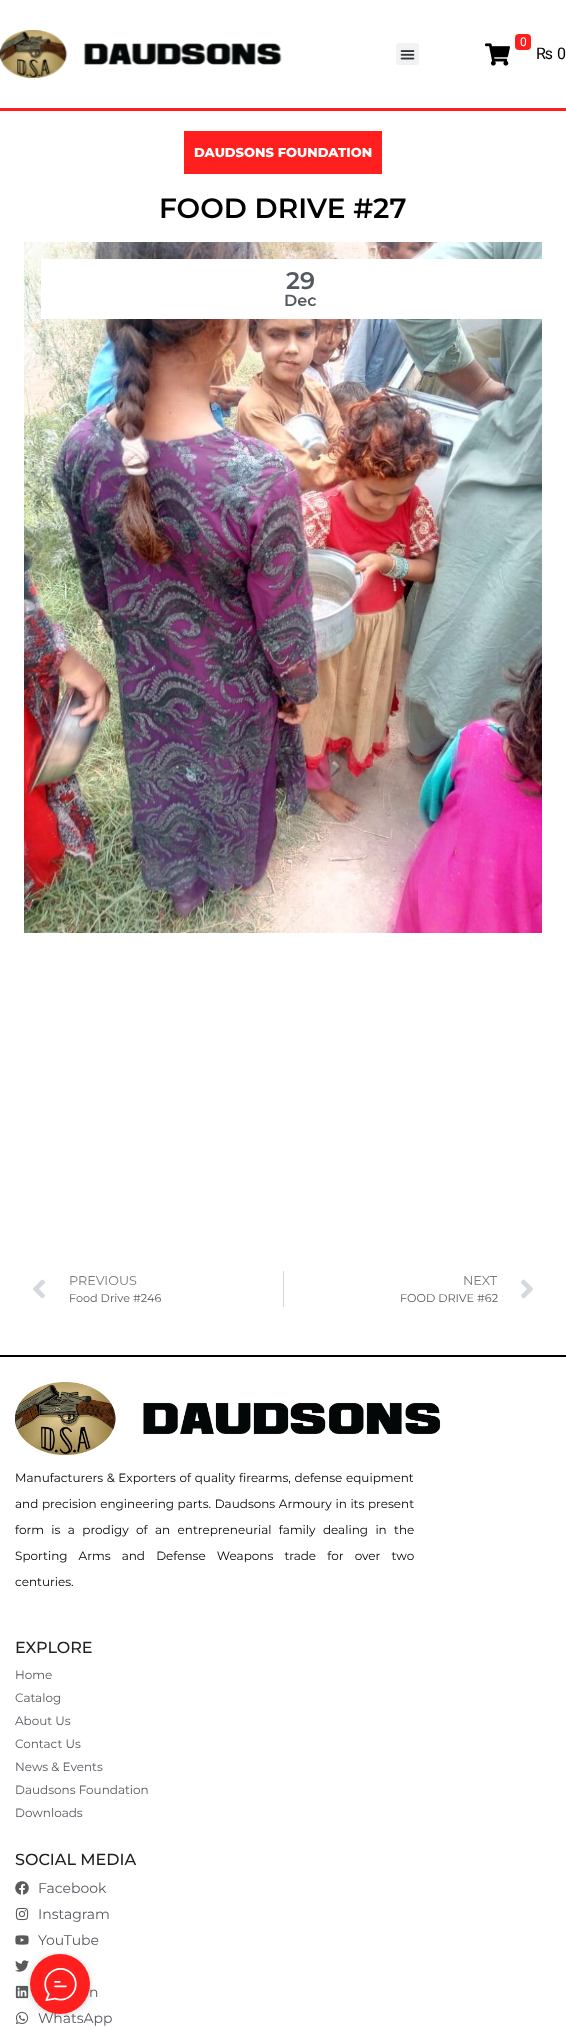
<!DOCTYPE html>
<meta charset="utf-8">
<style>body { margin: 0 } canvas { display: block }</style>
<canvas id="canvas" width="566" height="2044"></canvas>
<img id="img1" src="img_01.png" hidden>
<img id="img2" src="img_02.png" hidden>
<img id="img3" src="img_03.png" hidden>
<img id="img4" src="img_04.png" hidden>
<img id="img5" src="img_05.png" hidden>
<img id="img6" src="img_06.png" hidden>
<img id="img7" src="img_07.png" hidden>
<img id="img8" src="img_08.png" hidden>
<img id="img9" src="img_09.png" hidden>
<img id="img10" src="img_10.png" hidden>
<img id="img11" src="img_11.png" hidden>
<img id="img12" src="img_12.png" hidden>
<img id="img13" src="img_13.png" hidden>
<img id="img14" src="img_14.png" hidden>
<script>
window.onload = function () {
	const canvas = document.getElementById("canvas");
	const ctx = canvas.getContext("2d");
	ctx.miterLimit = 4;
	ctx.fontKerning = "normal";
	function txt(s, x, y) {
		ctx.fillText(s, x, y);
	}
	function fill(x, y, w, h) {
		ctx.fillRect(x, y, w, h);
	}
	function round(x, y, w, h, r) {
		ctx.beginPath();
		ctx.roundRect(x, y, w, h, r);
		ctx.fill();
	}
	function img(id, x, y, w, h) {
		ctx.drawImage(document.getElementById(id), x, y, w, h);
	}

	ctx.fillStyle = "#FFFFFF";
	fill(0, 0, 566, 2044);
	ctx.fillStyle = "#FF1F1F";
	fill(0, 108, 566, 3);
	img("img1", 0, 30, 282, 48);
	ctx.fillStyle = "#F2F2F2";
	round(396, 43, 23, 22, 3);
	img("img2", 400, 50, 15, 10);
	ctx.fillStyle = "#FF1F1F";
	round(515, 34, 16, 16, 4);
	img("img3", 485, 43, 25, 23);
	fill(184, 131, 198, 43);
	img("img4", 24, 242, 518, 691);
	ctx.fillStyle = "#FFFFFF";
	fill(41, 259, 501, 60);
	img("img5", 33, 1279, 12, 20);
	ctx.fillStyle = "#D5D8DC";
	fill(283, 1271, 1, 36);
	img("img6", 521, 1279, 12, 20);
	ctx.fillStyle = "#000000";
	fill(0, 1355, 566, 2);
	img("img7", 15, 1382, 426, 73);
	img("img8", 15, 1881, 14, 14);
	img("img9", 15, 1907, 14, 14);
	img("img10", 15, 1935, 14, 10);
	img("img11", 15, 1960, 14, 12);
	img("img12", 15, 1985, 14, 14);
	img("img13", 15, 2011, 14, 13);
	ctx.font = "12px Roboto";
	ctx.fillStyle = "#FFFFFF";
	txt("0", 520, 46);
	ctx.font = "16px Roboto";
	ctx.fillStyle = "#000000";
	txt("₨ 0", 536, 59);
	ctx.font = "800 13px Montserrat";
	ctx.fillStyle = "#FFFFFF";
	txt("DAUDSONS FOUNDATION", 194, 157);
	ctx.font = "600 28px Montserrat";
	ctx.fillStyle = "#000000";
	txt("FOOD DRIVE #27", 159, 218);
	ctx.font = "600 24px Montserrat";
	ctx.fillStyle = "#54595F";
	txt("29", 286, 289);
	ctx.font = "600 16px Montserrat";
	txt("Dec", 284, 306);
	ctx.font = "12.75px Montserrat";
	ctx.fillStyle = "#7A7A7A";
	txt("PREVIOUS", 69, 1285);
	ctx.font = "11.25px Montserrat";
	ctx.fillStyle = "#54595F";
	txt("Food Drive #246", 69, 1302);
	ctx.font = "12.75px Montserrat";
	ctx.fillStyle = "#7A7A7A";
	txt("NEXT", 463, 1285);
	ctx.font = "11.25px Montserrat";
	ctx.fillStyle = "#54595F";
	txt("FOOD DRIVE #62", 400, 1302);
	ctx.wordSpacing = "0.5px";
	ctx.font = "12px Montserrat";
	ctx.fillStyle = "#000000";
	txt("Manufacturers & Exporters of quality firearms, defense equipment", 15, 1482);
	txt("and precision engineering parts. Daudsons Armoury in its present", 15, 1508);
	ctx.wordSpacing = "4.25px";
	txt("form is a prodigy of an entrepreneurial family dealing in the", 15, 1534);
	ctx.wordSpacing = "8px";
	txt("Sporting Arms and Defense Weapons trade for over two", 15, 1560);
	ctx.wordSpacing = "0px";
	txt("centuries.", 15, 1586);
	ctx.font = "500 16px Montserrat";
	ctx.fillStyle = "#212121";
	txt("EXPLORE", 15, 1653);
	ctx.font = "12px Montserrat";
	ctx.fillStyle = "#54595F";
	txt("Home", 15, 1679);
	txt("Catalog", 15, 1702);
	txt("About Us", 15, 1725);
	txt("Contact Us", 15, 1748);
	txt("News & Events", 15, 1771);
	txt("Daudsons Foundation", 15, 1794);
	txt("Downloads", 15, 1817);
	ctx.font = "500 16px Montserrat";
	ctx.fillStyle = "#212121";
	txt("SOCIAL MEDIA", 15, 1865);
	ctx.font = "14px Montserrat";
	ctx.fillStyle = "#54595F";
	txt("Facebook", 38, 1893);
	txt("Instagram", 38, 1919);
	txt("YouTube", 38, 1945);
	txt("n", 89, 1997);
	txt("WhatsApp", 38, 2023);
	img("img14", 27, 1952, 66, 67);
};
</script>
